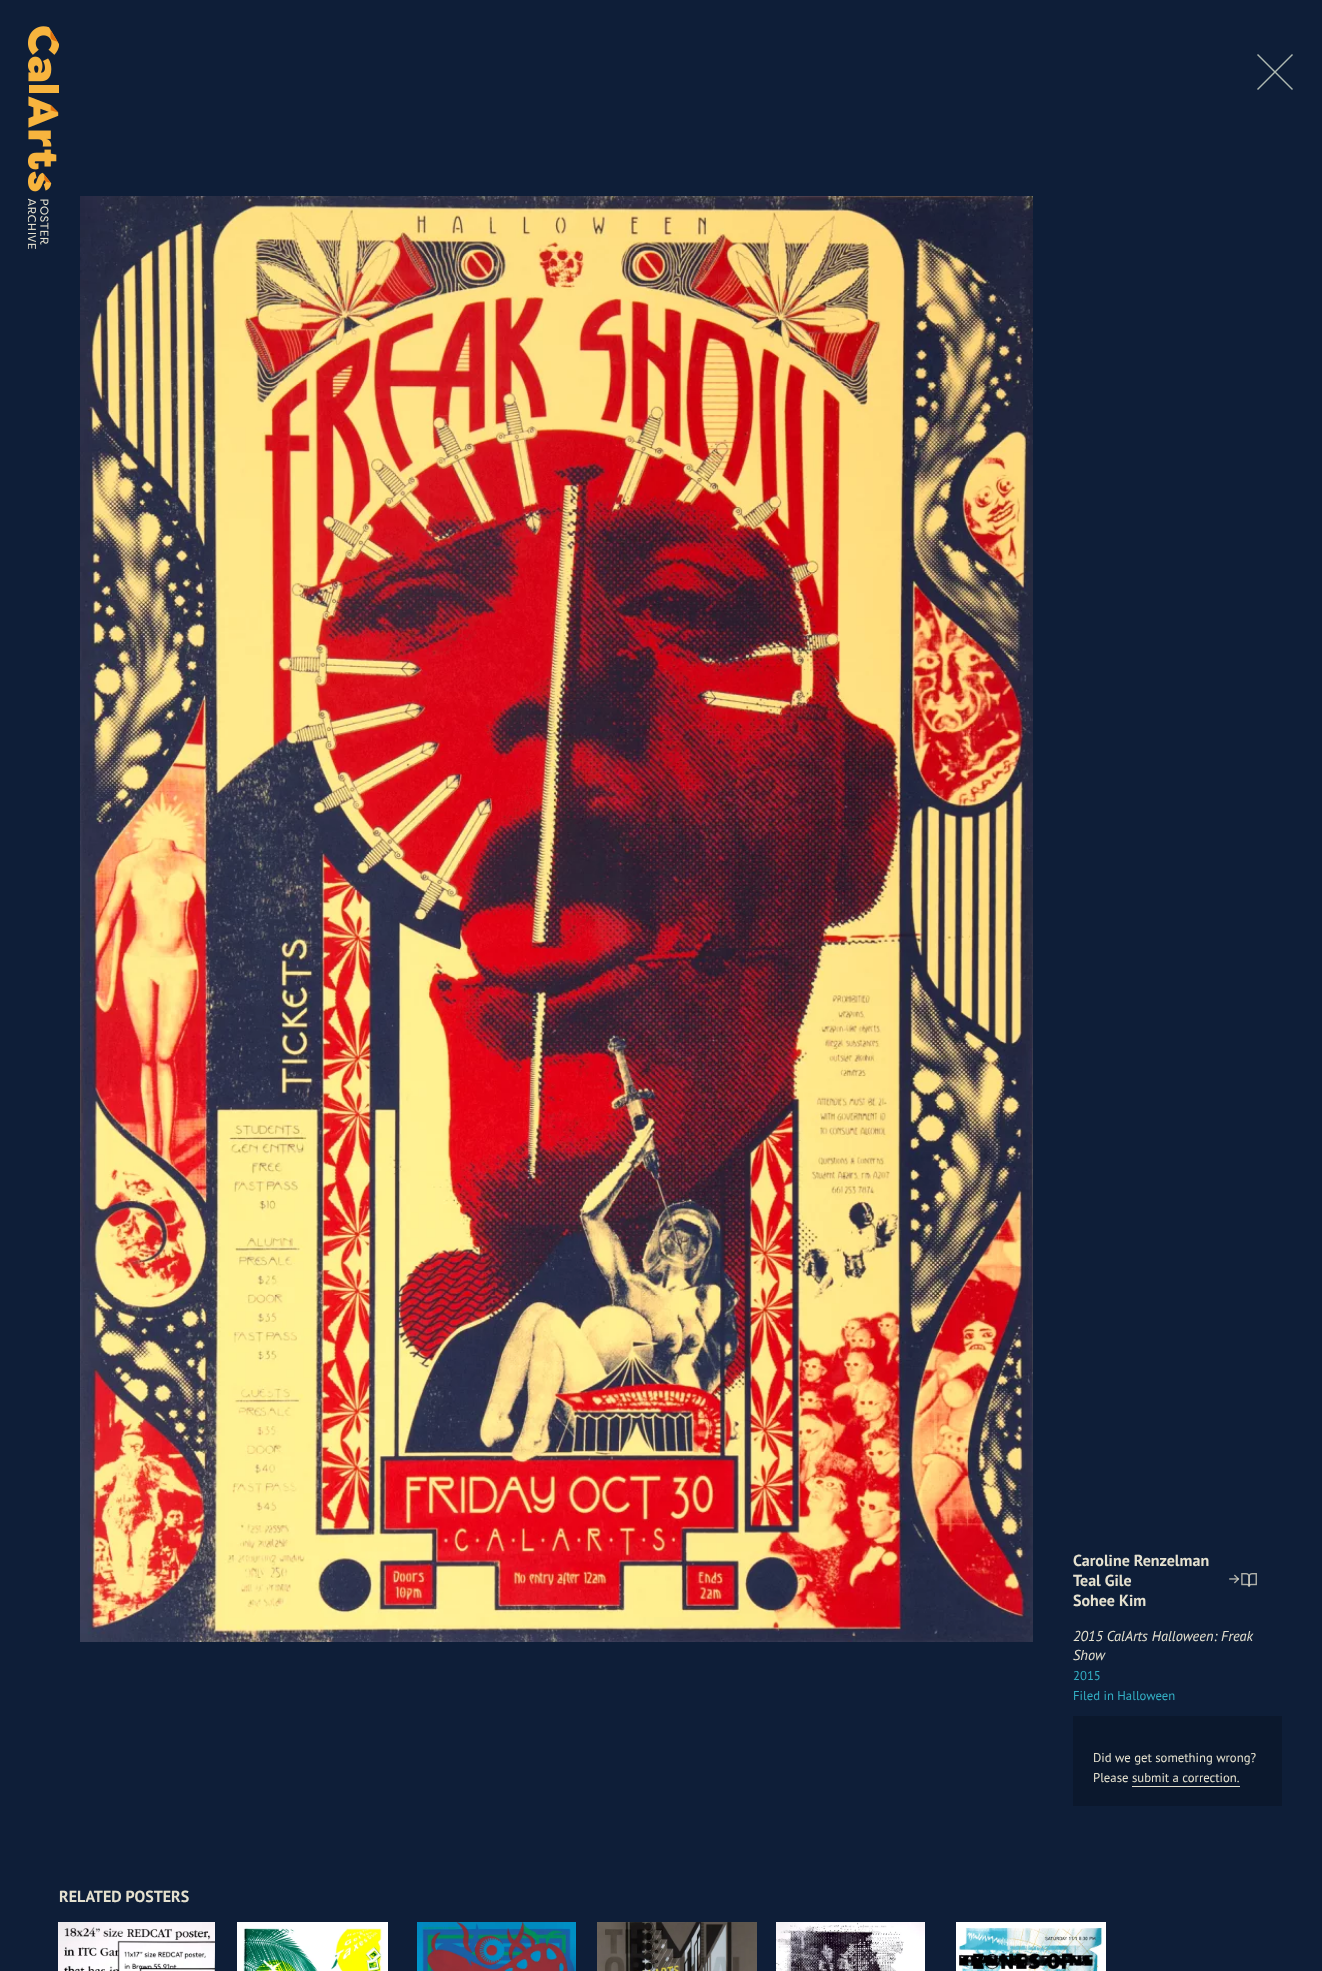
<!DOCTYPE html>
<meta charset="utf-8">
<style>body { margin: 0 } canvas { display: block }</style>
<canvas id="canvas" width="1322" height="1971"></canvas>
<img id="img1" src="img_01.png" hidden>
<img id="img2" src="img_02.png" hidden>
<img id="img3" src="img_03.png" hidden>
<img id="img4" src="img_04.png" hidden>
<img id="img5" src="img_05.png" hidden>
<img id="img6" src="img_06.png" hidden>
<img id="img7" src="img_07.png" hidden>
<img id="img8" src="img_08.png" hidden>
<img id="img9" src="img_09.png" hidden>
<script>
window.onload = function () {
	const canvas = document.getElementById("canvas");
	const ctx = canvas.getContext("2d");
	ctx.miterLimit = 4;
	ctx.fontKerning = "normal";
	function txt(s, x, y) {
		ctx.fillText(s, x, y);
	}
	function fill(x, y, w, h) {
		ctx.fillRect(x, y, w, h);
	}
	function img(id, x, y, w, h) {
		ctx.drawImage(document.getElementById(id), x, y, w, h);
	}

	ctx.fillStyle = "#0E1E38";
	fill(0, 0, 1322, 1971);
	img("img1", 27, 26, 32, 223);
	ctx.fillStyle = "#AFBAB1";
	ctx.beginPath();
	ctx.moveTo(1293, 55);
	ctx.lineTo(1292, 54);
	ctx.lineTo(1275, 71);
	ctx.lineTo(1258, 54);
	ctx.lineTo(1257, 55);
	ctx.lineTo(1274, 72);
	ctx.lineTo(1257, 89);
	ctx.lineTo(1258, 90);
	ctx.lineTo(1275, 73);
	ctx.lineTo(1292, 90);
	ctx.lineTo(1293, 89);
	ctx.lineTo(1276, 72);
	ctx.closePath();
	ctx.fill();
	img("img2", 80, 196, 953, 1446);
	img("img3", 1229, 1573, 28, 14);
	ctx.fillStyle = "#0B182D";
	fill(1073, 1716, 209, 90);
	ctx.fillStyle = "#E5E1CF";
	fill(1132, 1786, 108, 1);
	img("img4", 58, 1922, 157, 49);
	img("img5", 237, 1922, 151, 49);
	img("img6", 417, 1922, 159, 49);
	img("img7", 597, 1922, 160, 49);
	img("img8", 776, 1922, 149, 49);
	img("img9", 956, 1922, 150, 49);
	ctx.font = "bold 16px PT Sans";
	txt("Caroline Renzelman", 1073, 1566);
	txt("Teal Gile", 1073, 1586);
	txt("Sohee Kim", 1073, 1606);
	ctx.font = "italic 14.4px PT Sans";
	txt("2015 CalArts Halloween: Freak", 1073, 1641);
	txt("Show", 1073, 1660);
	ctx.font = "12.75px PT Sans";
	ctx.fillStyle = "#33AFC4";
	txt("2015", 1073, 1680);
	txt("Filed in Halloween", 1073, 1700);
	ctx.fillStyle = "#E5E1CF";
	txt("Did we get something wrong?", 1093, 1762);
	txt("Please submit a correction.", 1093, 1782);
	ctx.font = "bold 16px PT Sans";
	txt("RELATED POSTERS", 59, 1902);
};
</script>
